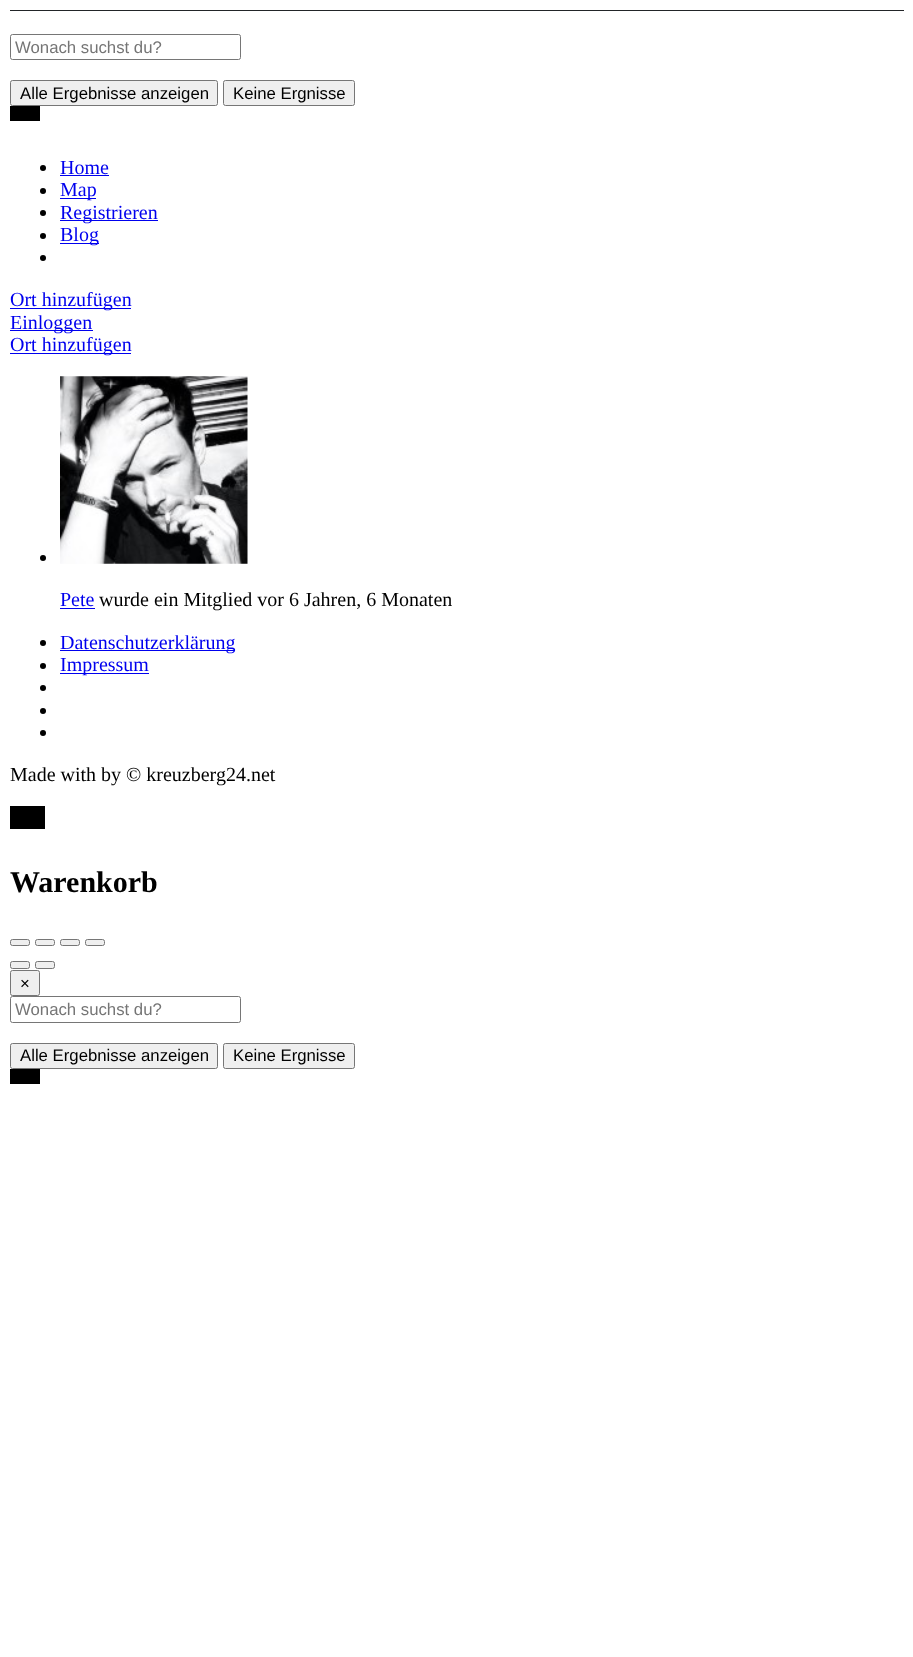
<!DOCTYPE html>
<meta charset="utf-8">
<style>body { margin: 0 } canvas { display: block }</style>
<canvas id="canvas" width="913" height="1657"></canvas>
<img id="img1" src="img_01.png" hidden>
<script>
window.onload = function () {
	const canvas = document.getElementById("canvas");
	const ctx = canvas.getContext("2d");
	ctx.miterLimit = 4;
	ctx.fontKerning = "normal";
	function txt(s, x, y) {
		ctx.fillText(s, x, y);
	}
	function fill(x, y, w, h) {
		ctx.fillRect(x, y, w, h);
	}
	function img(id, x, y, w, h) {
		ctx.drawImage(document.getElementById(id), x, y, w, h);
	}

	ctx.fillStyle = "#FFFFFF";
	fill(0, 0, 913, 1657);
	ctx.fillStyle = "#222528";
	fill(10, 10, 894, 1);
	ctx.beginPath();
	ctx.roundRect(10.5, 34.5, 230, 25, 2);
	ctx.strokeStyle = "#767676";
	ctx.stroke();
	ctx.fillStyle = "#EFEFEF";
	ctx.beginPath();
	ctx.roundRect(10.5, 80.5, 207, 25, 2);
	ctx.fill();
	ctx.stroke();
	ctx.beginPath();
	ctx.roundRect(223.5, 80.5, 131, 25, 2);
	ctx.fill();
	ctx.stroke();
	ctx.fillStyle = "#000000";
	fill(10, 106, 30, 15);
	ctx.beginPath();
	ctx.arc(43, 168, 3, 0, Math.PI * 2);
	ctx.fill();
	ctx.fillStyle = "#0000EE";
	fill(60, 175, 49, 1);
	ctx.fillStyle = "#000000";
	ctx.beginPath();
	ctx.arc(43, 191, 3, 0, Math.PI * 2);
	ctx.fill();
	ctx.fillStyle = "#0000EE";
	fill(60, 198, 36, 1);
	ctx.fillStyle = "#000000";
	ctx.beginPath();
	ctx.arc(43, 213, 3, 0, Math.PI * 2);
	ctx.fill();
	ctx.fillStyle = "#0000EE";
	fill(60, 220, 98, 1);
	ctx.fillStyle = "#000000";
	ctx.beginPath();
	ctx.arc(43, 236, 3, 0, Math.PI * 2);
	ctx.fill();
	ctx.fillStyle = "#0000EE";
	fill(60, 243, 39, 1);
	ctx.fillStyle = "#000000";
	ctx.beginPath();
	ctx.arc(43, 258, 3, 0, Math.PI * 2);
	ctx.fill();
	ctx.fillStyle = "#0000EE";
	fill(10, 308, 121, 1);
	fill(10, 330, 83, 1);
	fill(10, 353, 121, 1);
	ctx.fillStyle = "#000000";
	ctx.beginPath();
	ctx.arc(43, 558, 3, 0, Math.PI * 2);
	ctx.fill();
	img("img1", 60, 376, 188, 188);
	ctx.fillStyle = "#0000EE";
	fill(60, 608, 35, 1);
	ctx.fillStyle = "#000000";
	ctx.beginPath();
	ctx.arc(43, 643, 3, 0, Math.PI * 2);
	ctx.fill();
	ctx.fillStyle = "#0000EE";
	fill(60, 650, 175, 1);
	ctx.fillStyle = "#000000";
	ctx.beginPath();
	ctx.arc(43, 666, 3, 0, Math.PI * 2);
	ctx.fill();
	ctx.fillStyle = "#0000EE";
	fill(60, 673, 89, 1);
	ctx.fillStyle = "#000000";
	ctx.beginPath();
	ctx.arc(43, 688, 3, 0, Math.PI * 2);
	ctx.fill();
	ctx.beginPath();
	ctx.arc(43, 711, 3, 0, Math.PI * 2);
	ctx.fill();
	ctx.beginPath();
	ctx.arc(43, 733, 3, 0, Math.PI * 2);
	ctx.fill();
	fill(10, 806, 35, 23);
	ctx.fillStyle = "#EFEFEF";
	ctx.beginPath();
	ctx.roundRect(10.5, 939.5, 19, 6, 2);
	ctx.fill();
	ctx.stroke();
	ctx.beginPath();
	ctx.roundRect(35.5, 939.5, 19, 6, 2);
	ctx.fill();
	ctx.stroke();
	ctx.beginPath();
	ctx.roundRect(60.5, 939.5, 19, 6, 2);
	ctx.fill();
	ctx.stroke();
	ctx.beginPath();
	ctx.roundRect(85.5, 939.5, 19, 6, 2);
	ctx.fill();
	ctx.stroke();
	ctx.beginPath();
	ctx.roundRect(10.5, 961.5, 19, 7, 2);
	ctx.fill();
	ctx.stroke();
	ctx.beginPath();
	ctx.roundRect(35.5, 961.5, 19, 7, 2);
	ctx.fill();
	ctx.stroke();
	ctx.beginPath();
	ctx.roundRect(10.5, 970.5, 29, 25, 2);
	ctx.fill();
	ctx.stroke();
	ctx.beginPath();
	ctx.roundRect(10.5, 996.5, 230, 26, 2);
	ctx.stroke();
	ctx.beginPath();
	ctx.roundRect(10.5, 1043.5, 207, 25, 2);
	ctx.fill();
	ctx.stroke();
	ctx.beginPath();
	ctx.roundRect(223.5, 1043.5, 131, 25, 2);
	ctx.fill();
	ctx.stroke();
	ctx.fillStyle = "#000000";
	fill(10, 1069, 30, 15);
	ctx.font = "16.75px Liberation Sans";
	ctx.fillStyle = "#757575";
	txt("Wonach suchst du?", 15, 53);
	ctx.fillStyle = "#000000";
	txt("Alle Ergebnisse anzeigen", 20, 99);
	txt("Keine Ergnisse", 233, 99);
	ctx.font = "20px Liberation Serif";
	ctx.fillStyle = "#0000EE";
	txt("Home", 60, 174);
	txt("Map", 60, 196);
	txt("Registrieren", 60, 219);
	txt("Blog", 60, 241);
	txt("Ort hinzufügen", 10, 306);
	txt("Einloggen", 10, 329);
	txt("Ort hinzufügen", 10, 351);
	txt("Pete", 60, 606);
	ctx.fillStyle = "#000000";
	txt("wurde ein Mitglied vor 6 Jahren, 6 Monaten", 99, 606);
	ctx.fillStyle = "#0000EE";
	txt("Datenschutzerklärung", 60, 649);
	txt("Impressum", 60, 671);
	ctx.fillStyle = "#000000";
	txt("Made with by © kreuzberg24.net", 10, 781);
	ctx.font = "bold 30px Liberation Serif";
	txt("Warenkorb", 10, 892);
	ctx.font = "16.75px Liberation Sans";
	txt("×", 20, 989);
	ctx.fillStyle = "#757575";
	txt("Wonach suchst du?", 15, 1015);
	ctx.fillStyle = "#000000";
	txt("Alle Ergebnisse anzeigen", 20, 1061);
	txt("Keine Ergnisse", 233, 1061);
};
</script>
